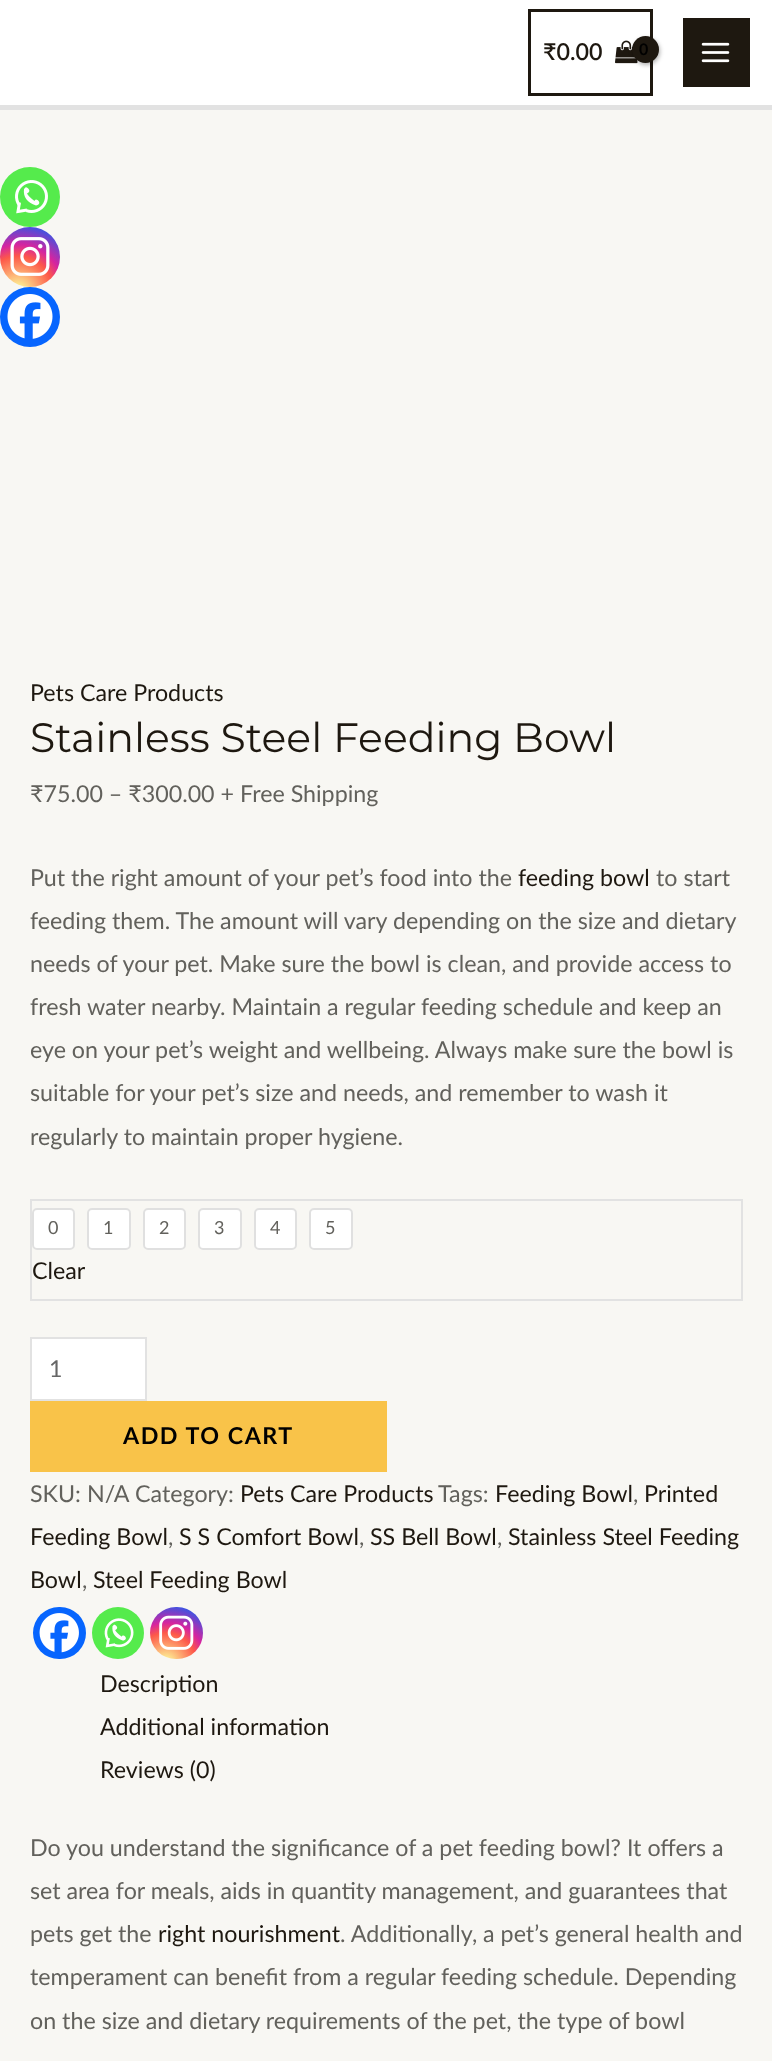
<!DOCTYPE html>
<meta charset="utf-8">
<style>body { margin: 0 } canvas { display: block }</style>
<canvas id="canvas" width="772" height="2061"></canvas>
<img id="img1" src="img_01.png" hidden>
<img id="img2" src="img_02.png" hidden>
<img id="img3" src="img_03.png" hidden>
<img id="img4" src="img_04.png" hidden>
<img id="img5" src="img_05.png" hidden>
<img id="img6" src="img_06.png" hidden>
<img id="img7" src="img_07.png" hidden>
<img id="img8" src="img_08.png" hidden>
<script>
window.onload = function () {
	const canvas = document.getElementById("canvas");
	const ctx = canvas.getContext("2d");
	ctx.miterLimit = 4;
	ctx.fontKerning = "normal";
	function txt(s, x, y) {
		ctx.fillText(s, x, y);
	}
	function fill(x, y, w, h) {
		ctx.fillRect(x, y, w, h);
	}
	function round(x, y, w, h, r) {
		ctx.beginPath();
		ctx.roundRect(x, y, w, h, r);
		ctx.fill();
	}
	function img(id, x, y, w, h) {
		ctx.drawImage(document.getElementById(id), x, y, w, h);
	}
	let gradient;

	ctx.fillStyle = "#F8F7F3";
	fill(0, 0, 772, 2061);
	ctx.fillStyle = "#FFFFFF";
	fill(0, 0, 772, 105);
	ctx.fillStyle = "#E2E2E2";
	fill(0, 105, 772, 5);
	ctx.strokeStyle = "#1E1810";
	ctx.lineWidth = 3;
	ctx.strokeRect(529.5, 10.5, 122, 84);
	img("img1", 615, 40, 23, 24);
	ctx.fillStyle = "rgba(0, 0, 0, 0.3)";
	ctx.filter = "blur(2px)";
	ctx.beginPath();
	ctx.roundRect(633, 38, 27, 27, 13.5);
	ctx.fill();
	ctx.filter = "none";
	ctx.fillStyle = "#1E1810";
	ctx.beginPath();
	ctx.arc(645.5, 49.5, 13.5, 0, Math.PI * 2);
	ctx.fill();
	fill(683, 18, 67, 69);
	img("img2", 701, 42, 29, 21);
	ctx.fillStyle = "#E2E2E2";
	fill(30, 1199, 713, 2);
	fill(30, 1199, 2, 102);
	fill(741, 1200, 2, 101);
	fill(32, 1299, 711, 2);
	ctx.fillStyle = "#FFFFFF";
	round(32, 1208, 43, 42, 5);
	ctx.beginPath();
	ctx.roundRect(33, 1209, 41, 40, 4);
	ctx.strokeStyle = "rgba(0, 0, 0, 0.12)";
	ctx.lineWidth = 2;
	ctx.stroke();
	round(87, 1208, 44, 42, 5);
	ctx.beginPath();
	ctx.roundRect(88, 1209, 42, 40, 4);
	ctx.stroke();
	round(143, 1208, 43, 42, 5);
	ctx.beginPath();
	ctx.roundRect(144, 1209, 41, 40, 4);
	ctx.stroke();
	round(198, 1208, 44, 42, 5);
	ctx.beginPath();
	ctx.roundRect(199, 1209, 42, 40, 4);
	ctx.stroke();
	round(254, 1208, 43, 42, 5);
	ctx.beginPath();
	ctx.roundRect(255, 1209, 41, 40, 4);
	ctx.stroke();
	round(309, 1208, 44, 42, 5);
	ctx.beginPath();
	ctx.roundRect(310, 1209, 42, 40, 4);
	ctx.stroke();
	ctx.beginPath();
	ctx.rect(31, 1338, 115, 62);
	ctx.fill();
	ctx.strokeStyle = "#E2E2E2";
	ctx.stroke();
	ctx.fillStyle = "#F9C349";
	fill(30, 1401, 357, 71);
	ctx.fillStyle = "#0765FE";
	round(33, 1607, 53, 52, 26);
	img("img3", 39, 1613, 40, 40);
	ctx.fillStyle = "#55EB4C";
	ctx.beginPath();
	ctx.arc(118, 1633, 26, 0, Math.PI * 2);
	ctx.fill();
	img("img4", 104, 1618, 30, 30);
	gradient = ctx.createRadialGradient(166, 1663, 0, 166, 1663, 67);
	gradient.addColorStop(0, "#FDF497");
	gradient.addColorStop(0.05, "#FDF497");
	gradient.addColorStop(0.45, "#FD5949");
	gradient.addColorStop(0.6, "#D6249F");
	gradient.addColorStop(0.9, "#285AEB");
	ctx.fillStyle = gradient;
	round(150, 1607, 53, 52, 26);
	img("img5", 159, 1615, 35, 35);
	ctx.fillStyle = "#55EB4C";
	ctx.beginPath();
	ctx.arc(30, 197, 30, 0, Math.PI * 2);
	ctx.fill();
	img("img6", 15, 180, 33, 34);
	gradient = ctx.createRadialGradient(18, 291, 0, 18, 291, 77);
	gradient.addColorStop(0, "#FDF497");
	gradient.addColorStop(0.05, "#FDF497");
	gradient.addColorStop(0.45, "#FD5949");
	gradient.addColorStop(0.6, "#D6249F");
	gradient.addColorStop(0.9, "#285AEB");
	ctx.fillStyle = gradient;
	ctx.beginPath();
	ctx.arc(30, 257, 30, 0, Math.PI * 2);
	ctx.fill();
	img("img7", 10, 237, 40, 39);
	ctx.fillStyle = "#0765FE";
	ctx.beginPath();
	ctx.arc(30, 317, 30, 0, Math.PI * 2);
	ctx.fill();
	img("img8", 7, 294, 46, 45);
	ctx.font = "600 23.25px Lato";
	ctx.fillStyle = "#1E1810";
	txt("₹0.00", 543, 60);
	ctx.letterSpacing = "-1px";
	ctx.font = "bold 16px Lato";
	ctx.fillStyle = "#000000";
	txt("0", 639, 55);
	ctx.letterSpacing = "0px";
	ctx.font = "23.25px Lato";
	ctx.fillStyle = "#1E1810";
	txt("Pets Care Products", 30, 701);
	ctx.font = "41px Montserrat";
	txt("Stainless Steel Feeding Bowl", 30, 752);
	ctx.font = "23.25px Lato";
	ctx.fillStyle = "#62615C";
	txt("₹75.00 – ₹300.00 + Free Shipping", 30, 802);
	txt("Put the right amount of your pet’s food into the", 30, 886);
	ctx.fillStyle = "#1E1810";
	txt("feeding bowl", 518, 886);
	ctx.fillStyle = "#62615C";
	txt("to start", 656, 886);
	txt("feeding them. The amount will vary depending on the size and dietary", 30, 929);
	txt("needs of your pet. Make sure the bowl is clean, and provide access to", 30, 972);
	txt("fresh water nearby. Maintain a regular feeding schedule and keep an", 30, 1015);
	txt("eye on your pet’s weight and wellbeing. Always make sure the bowl is", 30, 1058);
	txt("suitable for your pet’s size and needs, and remember to wash it", 30, 1101);
	txt("regularly to maintain proper hygiene.", 30, 1145);
	ctx.font = "18px Lato";
	txt("0", 48, 1234);
	txt("1", 103, 1234);
	txt("2", 159, 1234);
	txt("3", 214, 1234);
	txt("4", 270, 1234);
	txt("5", 325, 1234);
	ctx.font = "23.25px Lato";
	ctx.fillStyle = "#1E1810";
	txt("Clear", 32, 1279);
	ctx.fillStyle = "#666666";
	txt("1", 49, 1377);
	ctx.letterSpacing = "1.5px";
	ctx.font = "bold 23.25px Lato";
	ctx.fillStyle = "#000000";
	txt("ADD TO CART", 123, 1444);
	ctx.letterSpacing = "0px";
	ctx.font = "23.25px Lato";
	ctx.fillStyle = "#62615C";
	txt("SKU: N/A", 30, 1502);
	txt("Category:", 135, 1502);
	ctx.fillStyle = "#1E1810";
	txt("Pets Care Products", 240, 1502);
	ctx.fillStyle = "#62615C";
	txt("Tags:", 438, 1502);
	ctx.fillStyle = "#1E1810";
	txt("Feeding Bowl", 495, 1502);
	ctx.fillStyle = "#62615C";
	txt(",", 633, 1502);
	ctx.fillStyle = "#1E1810";
	txt("Printed", 644, 1502);
	txt("Feeding Bowl", 30, 1545);
	ctx.fillStyle = "#62615C";
	txt(",", 168, 1545);
	ctx.fillStyle = "#1E1810";
	txt("S S Comfort Bowl", 179, 1545);
	ctx.fillStyle = "#62615C";
	txt(",", 359, 1545);
	ctx.fillStyle = "#1E1810";
	txt("SS Bell Bowl", 370, 1545);
	ctx.fillStyle = "#62615C";
	txt(",", 497, 1545);
	ctx.fillStyle = "#1E1810";
	txt("Stainless Steel Feeding", 508, 1545);
	txt("Bowl", 30, 1588);
	ctx.fillStyle = "#62615C";
	txt(",", 82, 1588);
	ctx.fillStyle = "#1E1810";
	txt("Steel Feeding Bowl", 93, 1588);
	txt("Description", 100, 1692);
	txt("Additional information", 100, 1735);
	txt("Reviews (0)", 100, 1778);
	ctx.fillStyle = "#62615C";
	txt("Do you understand the significance of a pet feeding bowl? It offers a", 30, 1856);
	txt("set area for meals, aids in quantity management, and guarantees that", 30, 1899);
	txt("pets get the", 30, 1942);
	ctx.fillStyle = "#1E1810";
	txt("right nourishment", 158, 1942);
	ctx.fillStyle = "#62615C";
	txt(". Additionally, a pet’s general health and", 340, 1942);
	txt("temperament can benefit from a regular feeding schedule. Depending", 30, 1985);
	txt("on the size and dietary requirements of the pet, the type of bowl", 30, 2029);
};
</script>
